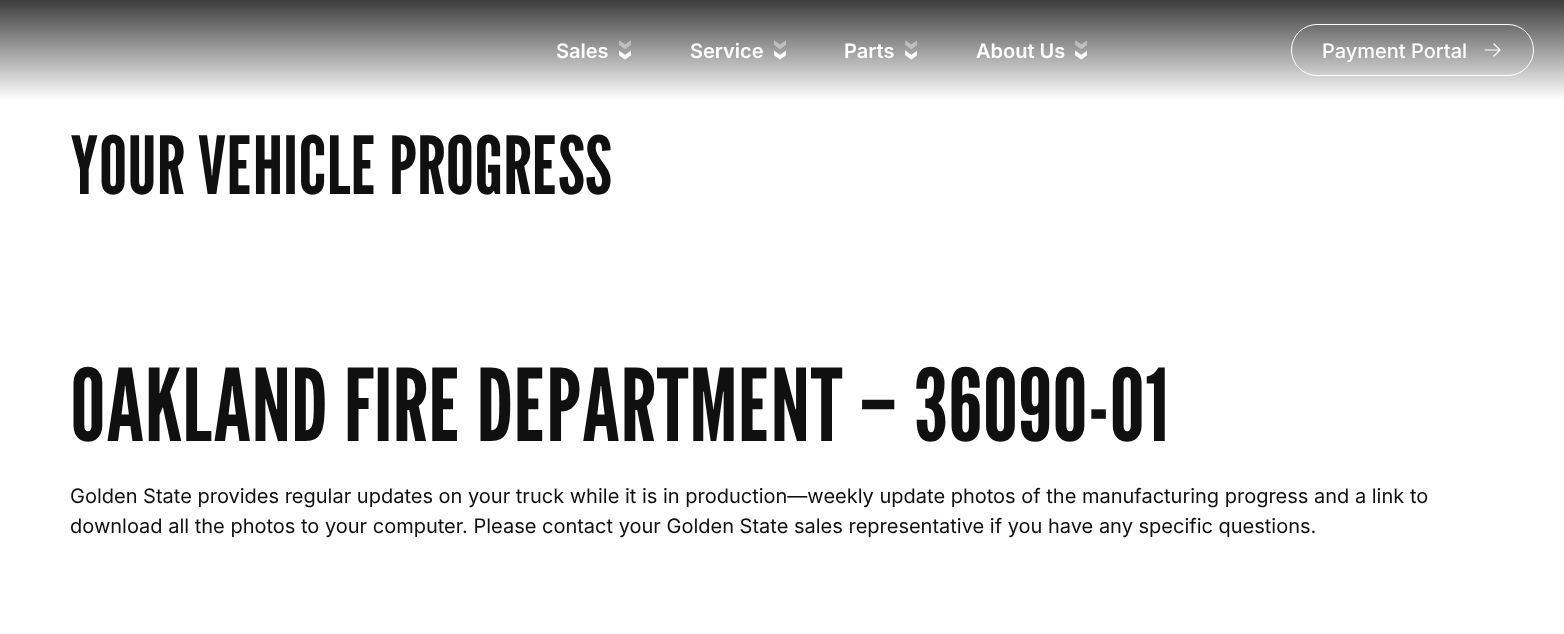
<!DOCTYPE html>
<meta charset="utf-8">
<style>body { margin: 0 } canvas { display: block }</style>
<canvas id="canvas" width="1564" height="634"></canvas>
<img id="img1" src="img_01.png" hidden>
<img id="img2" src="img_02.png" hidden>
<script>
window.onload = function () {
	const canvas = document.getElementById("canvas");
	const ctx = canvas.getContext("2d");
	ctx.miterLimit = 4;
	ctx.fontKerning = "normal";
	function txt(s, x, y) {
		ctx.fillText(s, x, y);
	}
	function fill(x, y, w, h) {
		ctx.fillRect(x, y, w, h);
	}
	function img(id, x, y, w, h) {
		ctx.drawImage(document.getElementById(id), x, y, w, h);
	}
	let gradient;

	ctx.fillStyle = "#FFFFFF";
	fill(0, 0, 1564, 634);
	gradient = ctx.createLinearGradient(783, 0, 783, 100);
	gradient.addColorStop(0, "#3D3D3D");
	gradient.addColorStop(1, "#FFFFFF");
	ctx.fillStyle = gradient;
	fill(0, 0, 1564, 99);
	img("img1", 619, 40, 12, 20);
	img("img1", 774, 40, 12, 20);
	img("img2", 905, 40, 12, 20);
	img("img2", 1075, 40, 12, 20);
	ctx.beginPath();
	ctx.roundRect(1291.5, 24.5, 242, 51, 25.5);
	ctx.strokeStyle = "#FFFFFF";
	ctx.stroke();
	ctx.beginPath();
	ctx.moveTo(1494, 44);
	ctx.lineTo(1500, 50);
	ctx.moveTo(1500, 50);
	ctx.lineTo(1494, 56);
	ctx.moveTo(1500, 50);
	ctx.lineTo(1485, 50);
	ctx.lineWidth = 1.2;
	ctx.lineCap = "round";
	ctx.lineJoin = "round";
	ctx.stroke();
	ctx.font = "600 20px Inter";
	ctx.fillStyle = "#FFFFFF";
	txt("Sales", 556, 58);
	txt("Service", 690, 58);
	txt("Parts", 844, 58);
	txt("About Us", 976, 58);
	ctx.font = "500 20px Inter";
	txt("Payment Portal", 1322, 58);
	ctx.font = "80px League Gothic";
	ctx.fillStyle = "#101010";
	txt("YOUR VEHICLE PROGRESS", 70, 194);
	ctx.font = "100px League Gothic";
	txt("OAKLAND FIRE DEPARTMENT – 36090-01", 70, 441);
	ctx.font = "20px Inter";
	txt("Golden State provides regular updates on your truck while it is in production—weekly update photos of the manufacturing progress and a link to", 70, 503);
	txt("download all the photos to your computer. Please contact your Golden State sales representative if you have any specific questions.", 70, 533);
};
</script>
